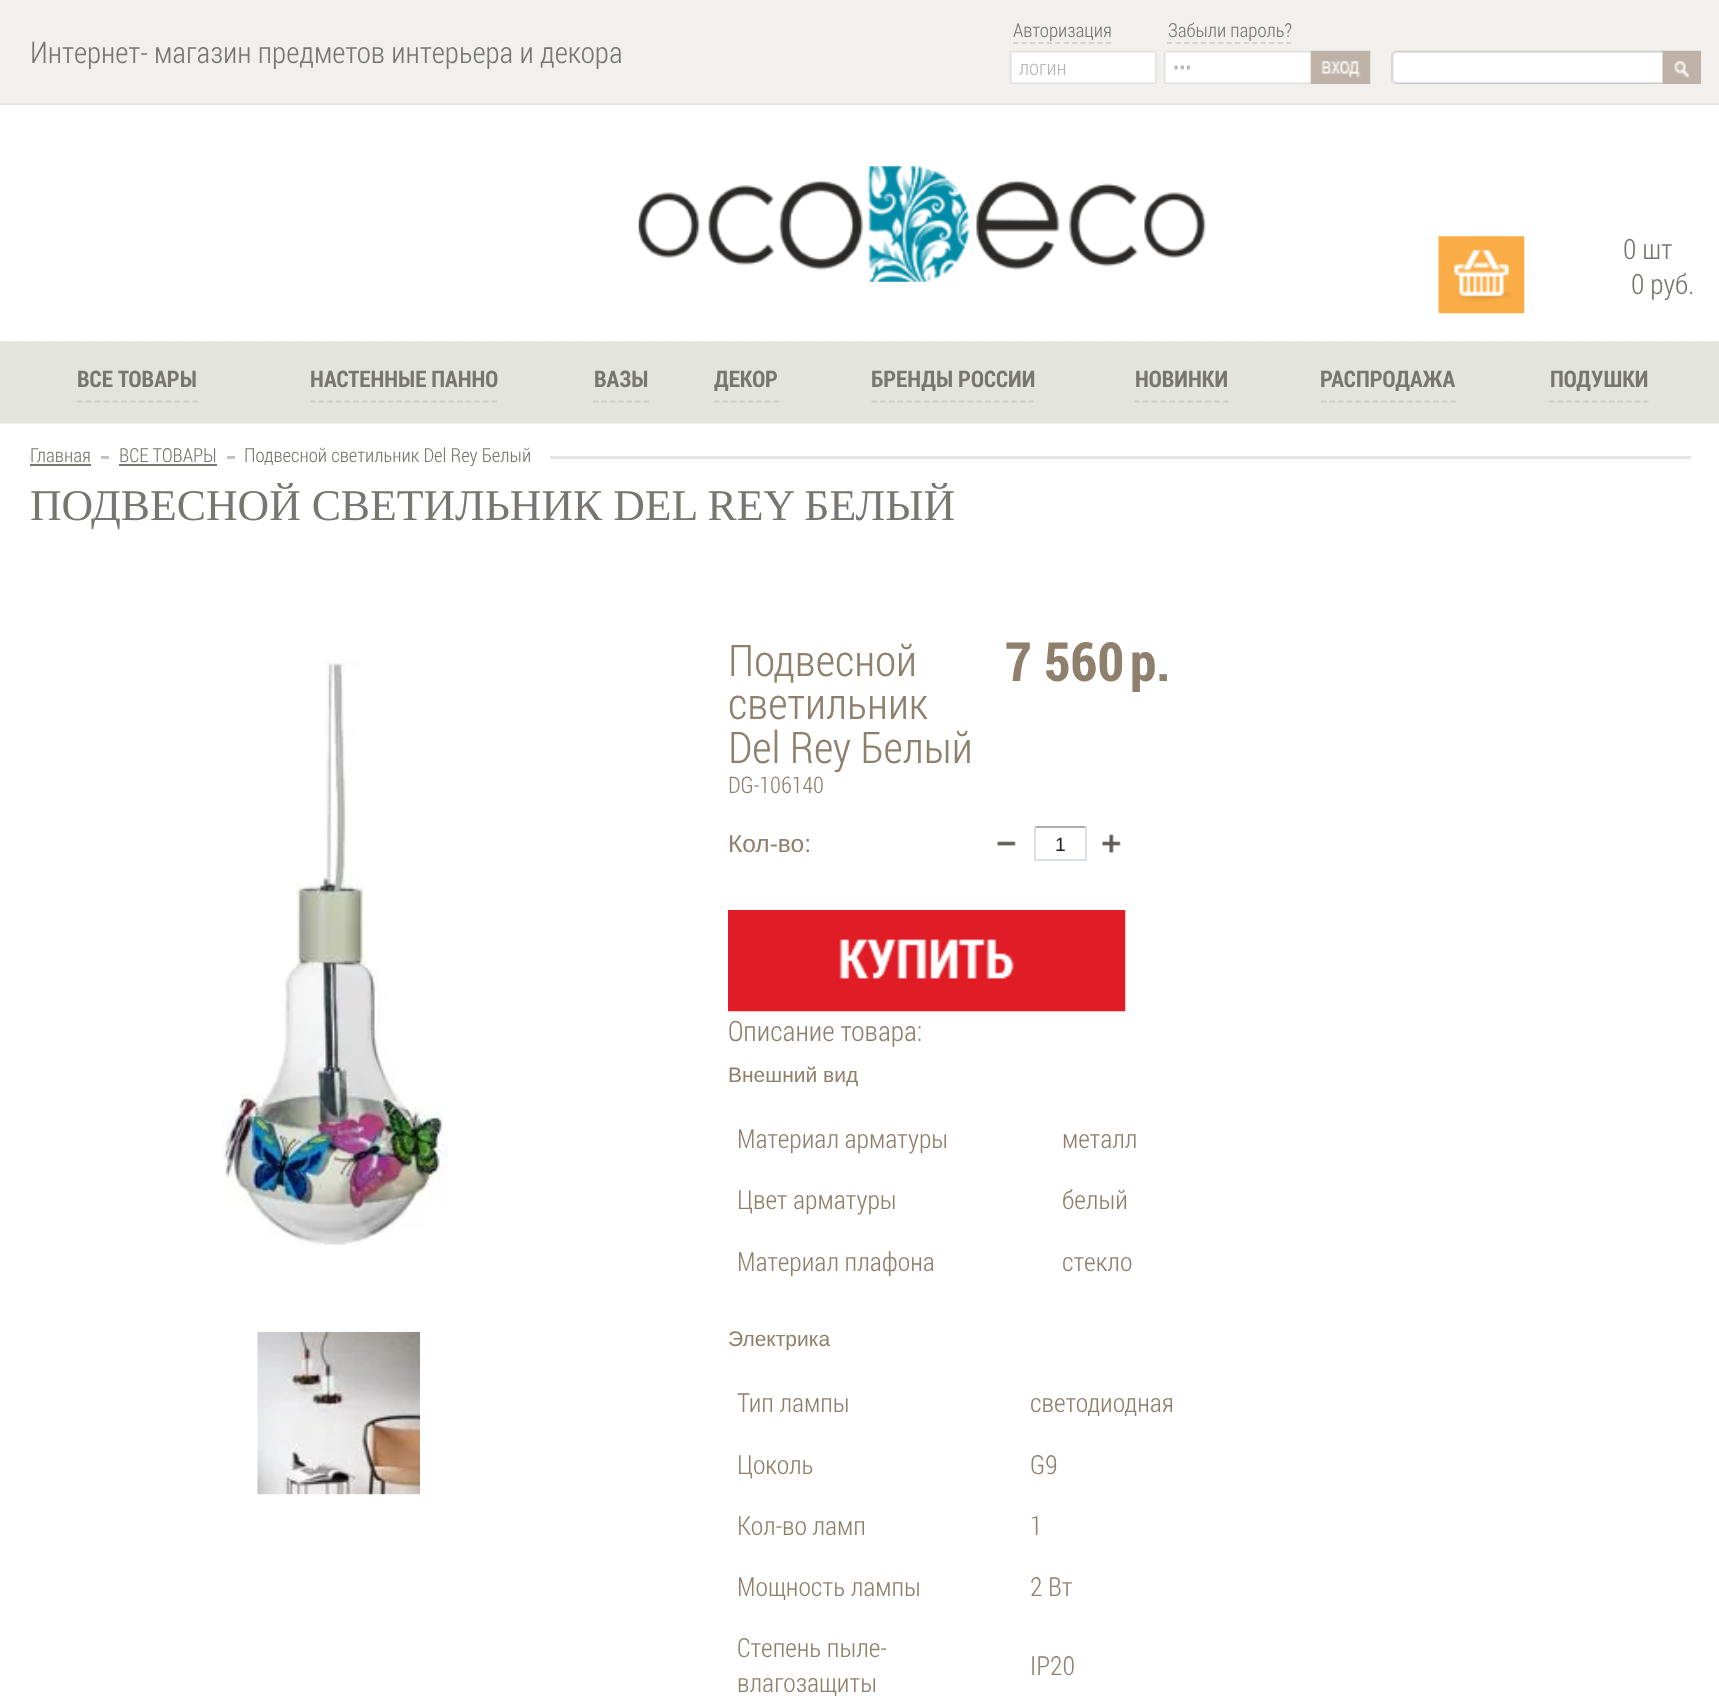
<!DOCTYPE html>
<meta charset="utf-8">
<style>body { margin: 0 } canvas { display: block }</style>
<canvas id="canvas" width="1719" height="1703"></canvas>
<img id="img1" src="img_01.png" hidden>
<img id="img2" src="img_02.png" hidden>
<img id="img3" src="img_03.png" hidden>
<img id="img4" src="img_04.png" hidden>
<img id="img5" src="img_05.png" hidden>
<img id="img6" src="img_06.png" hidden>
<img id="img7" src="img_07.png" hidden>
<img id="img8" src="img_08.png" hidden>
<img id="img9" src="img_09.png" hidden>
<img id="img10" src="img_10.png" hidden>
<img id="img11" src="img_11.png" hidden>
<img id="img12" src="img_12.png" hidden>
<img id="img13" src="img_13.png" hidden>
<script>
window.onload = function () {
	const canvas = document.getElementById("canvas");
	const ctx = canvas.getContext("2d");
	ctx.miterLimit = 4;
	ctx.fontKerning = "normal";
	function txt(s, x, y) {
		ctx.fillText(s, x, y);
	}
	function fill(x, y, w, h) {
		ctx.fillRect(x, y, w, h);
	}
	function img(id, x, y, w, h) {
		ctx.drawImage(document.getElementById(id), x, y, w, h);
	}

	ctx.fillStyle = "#FFFFFF";
	fill(0, 0, 1719, 1703);
	img("img1", 0, 0, 1719, 105);
	img("img2", 638, 166, 568, 116);
	ctx.beginPath();
	ctx.moveTo(1013, 43);
	ctx.lineTo(1111, 43);
	ctx.strokeStyle = "#D3D2CF";
	ctx.lineWidth = 1.8;
	ctx.setLineDash([5.25, 3.19]);
	ctx.stroke();
	ctx.beginPath();
	ctx.moveTo(1167, 43);
	ctx.lineTo(1291.5, 43);
	ctx.setLineDash([5.25, 3.26]);
	ctx.stroke();
	img("img3", 1009, 50, 148, 34);
	img("img4", 1163, 50, 148, 34);
	img("img5", 1310, 50, 61, 34);
	img("img6", 1391, 50, 310, 34);
	img("img7", 0, 341, 1719, 83);
	ctx.beginPath();
	ctx.moveTo(77, 401.5);
	ctx.lineTo(198, 401.5);
	ctx.strokeStyle = "#CDCEC8";
	ctx.setLineDash([5.25, 3.64]);
	ctx.stroke();
	ctx.beginPath();
	ctx.moveTo(310, 401.5);
	ctx.lineTo(497, 401.5);
	ctx.setLineDash([5.25, 3.41]);
	ctx.stroke();
	ctx.beginPath();
	ctx.moveTo(593, 401.5);
	ctx.lineTo(649, 401.5);
	ctx.setLineDash([5.25, 3.2]);
	ctx.stroke();
	ctx.beginPath();
	ctx.moveTo(714, 401.5);
	ctx.lineTo(779, 401.5);
	ctx.setLineDash([5.25, 3.26]);
	ctx.stroke();
	ctx.beginPath();
	ctx.moveTo(871.5, 401.5);
	ctx.lineTo(1034, 401.5);
	ctx.setLineDash([5.25, 3.5]);
	ctx.stroke();
	ctx.beginPath();
	ctx.moveTo(1134, 401.5);
	ctx.lineTo(1228.5, 401.5);
	ctx.setLineDash([5.25, 3.68]);
	ctx.stroke();
	ctx.beginPath();
	ctx.moveTo(1321, 401.5);
	ctx.lineTo(1456, 401.5);
	ctx.setLineDash([5.25, 3.38]);
	ctx.stroke();
	ctx.beginPath();
	ctx.moveTo(1549, 401.5);
	ctx.lineTo(1648.5, 401.5);
	ctx.setLineDash([5.25, 3.34]);
	ctx.stroke();
	img("img8", 1438, 236, 87, 78);
	ctx.fillStyle = "#E4E4E2";
	fill(29, 456, 1662, 3);
	ctx.fillStyle = "#FFFFFF";
	fill(30, 456, 520, 3);
	ctx.fillStyle = "#787670";
	fill(30, 464, 61, 2);
	ctx.fillStyle = "#C3C2C0";
	fill(101, 456, 8, 3);
	ctx.fillStyle = "#787670";
	fill(119, 464, 98, 2);
	ctx.fillStyle = "#C3C2C0";
	fill(227, 456, 8, 3);
	img("img9", 221, 660, 228, 586);
	img("img10", 257, 1331, 163, 164);
	img("img11", 997, 841, 19, 5);
	ctx.fillStyle = "#ABADB3";
	fill(1034, 826, 53, 2);
	ctx.fillStyle = "#DBDFE6";
	fill(1085, 826, 2, 35);
	fill(1034, 859, 53, 2);
	fill(1034, 826, 2, 35);
	img("img12", 1102, 834, 19, 19);
	img("img13", 728, 910, 398, 102);
	ctx.font = "300 29.75px Roboto Condensed";
	ctx.fillStyle = "#787670";
	txt("Интернет- магазин предметов интерьера и декора", 30, 63);
	ctx.font = "300 19.25px Roboto Condensed";
	txt("Авторизация", 1013, 37);
	txt("Забыли пароль?", 1168, 37);
	ctx.font = "300 21px Roboto Condensed";
	ctx.fillStyle = "#B8B7B6";
	txt("логин", 1019, 75);
	txt("•••", 1173, 75);
	ctx.font = "bold 22.75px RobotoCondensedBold";
	ctx.fillStyle = "#787670";
	txt("ВСЕ ТОВАРЫ", 77, 387);
	txt("НАСТЕННЫЕ ПАННО", 310, 387);
	txt("ВАЗЫ", 594, 387);
	txt("ДЕКОР", 714, 387);
	txt("БРЕНДЫ РОССИИ", 871, 387);
	txt("НОВИНКИ", 1135, 387);
	txt("РАСПРОДАЖА", 1320, 387);
	txt("ПОДУШКИ", 1550, 387);
	ctx.font = "300 28px Roboto Condensed";
	txt("0 шт", 1623, 259);
	txt("0 руб.", 1631, 294);
	ctx.font = "300 19.25px Roboto Condensed";
	txt("Главная", 30, 462);
	txt("ВСЕ ТОВАРЫ", 119, 462);
	txt("Подвесной светильник Del Rey Белый", 244, 462);
	ctx.font = "43.75px Liberation Serif";
	txt("ПОДВЕСНОЙ СВЕТИЛЬНИК DEL REY БЕЛЫЙ", 30, 520);
	ctx.font = "300 43.75px Roboto Condensed";
	ctx.fillStyle = "#8F7F6D";
	txt("Подвесной", 728, 676);
	txt("светильник", 728, 719);
	txt("Del Rey Белый", 728, 763);
	ctx.font = "300 22.75px Roboto Condensed";
	txt("DG-106140", 728, 793);
	ctx.font = "bold 54px RobotoCondensedBold";
	txt("7 560", 1005, 681);
	txt("р.", 1130, 681);
	ctx.font = "24.5px Liberation Sans";
	txt("Кол-во:", 728, 852);
	ctx.font = "19.25px Liberation Sans";
	ctx.fillStyle = "#222222";
	txt("1", 1055, 851);
	ctx.font = "300 28px Roboto Condensed";
	ctx.fillStyle = "#8F7F6D";
	txt("Описание товара:", 728, 1041);
	ctx.font = "21px Liberation Sans";
	txt("Внешний вид", 728, 1082);
	ctx.font = "300 26.25px Roboto Condensed";
	txt("Материал арматуры", 737, 1148);
	txt("металл", 1062, 1148);
	txt("Цвет арматуры", 737, 1209);
	txt("белый", 1062, 1209);
	txt("Материал плафона", 737, 1271);
	txt("стекло", 1062, 1271);
	ctx.font = "21px Liberation Sans";
	txt("Электрика", 728, 1346);
	ctx.font = "300 26.25px Roboto Condensed";
	txt("Тип лампы", 737, 1412);
	txt("светодиодная", 1030, 1412);
	txt("Цоколь", 737, 1474);
	txt("G9", 1030, 1474);
	txt("Кол-во ламп", 737, 1535);
	txt("1", 1030, 1535);
	txt("Мощность лампы", 737, 1596);
	txt("2 Вт", 1030, 1596);
	txt("Степень пыле-", 737, 1657);
	txt("влагозащиты", 737, 1692);
	txt("IP20", 1030, 1675);
};
</script>
